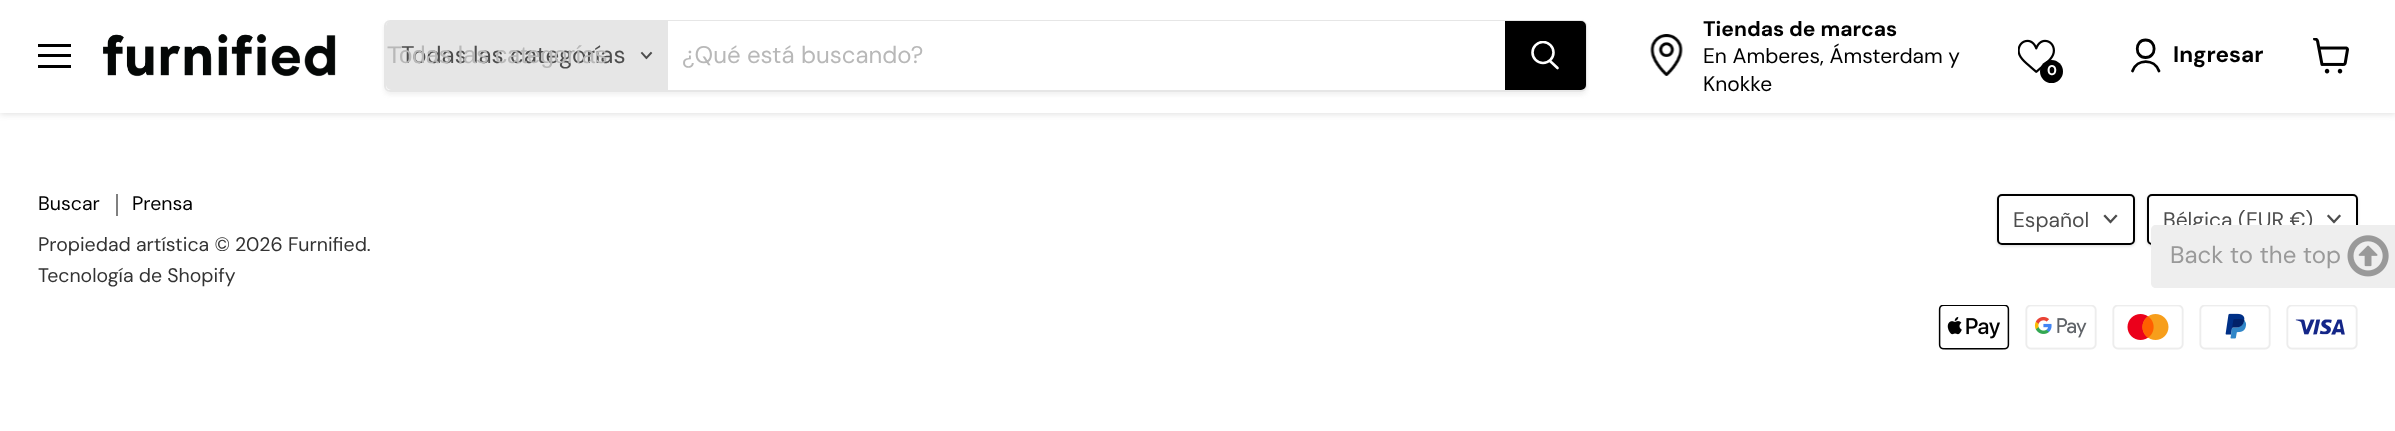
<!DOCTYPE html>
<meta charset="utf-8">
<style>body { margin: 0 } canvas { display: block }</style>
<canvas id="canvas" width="2395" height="431"></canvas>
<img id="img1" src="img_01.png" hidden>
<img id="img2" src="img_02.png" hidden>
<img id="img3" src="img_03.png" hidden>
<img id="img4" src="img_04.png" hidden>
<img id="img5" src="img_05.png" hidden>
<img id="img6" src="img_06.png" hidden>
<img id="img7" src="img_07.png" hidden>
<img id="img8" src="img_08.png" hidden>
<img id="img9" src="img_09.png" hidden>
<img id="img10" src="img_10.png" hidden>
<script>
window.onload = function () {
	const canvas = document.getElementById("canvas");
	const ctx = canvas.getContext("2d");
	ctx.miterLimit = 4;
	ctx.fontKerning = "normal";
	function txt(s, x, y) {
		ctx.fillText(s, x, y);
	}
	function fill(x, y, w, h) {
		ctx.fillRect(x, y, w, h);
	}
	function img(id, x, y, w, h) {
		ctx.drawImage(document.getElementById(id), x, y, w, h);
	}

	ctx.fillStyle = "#FFFFFF";
	fill(0, 0, 2395, 431);
	ctx.fillStyle = "rgba(128, 128, 128, 0.25)";
	ctx.filter = "blur(3px)";
	ctx.beginPath();
	ctx.rect(0, 2, 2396, 112);
	ctx.fill();
	ctx.filter = "none";
	ctx.fillStyle = "#FFFFFF";
	fill(0, 0, 2395, 113);
	ctx.fillStyle = "#000000";
	fill(38, 44, 33, 3);
	fill(38, 54, 33, 3);
	fill(38, 65, 33, 3);
	img("img1", 103, 34, 233, 43);
	ctx.save();
	ctx.beginPath();
	ctx.moveTo(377, 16);
	ctx.lineTo(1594, 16);
	ctx.lineTo(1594, 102);
	ctx.lineTo(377, 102);
	ctx.closePath();
	ctx.moveTo(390, 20);
	ctx.lineTo(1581, 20);
	ctx.bezierCurveTo(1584.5, 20, 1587, 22.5, 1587, 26);
	ctx.lineTo(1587, 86);
	ctx.bezierCurveTo(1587, 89.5, 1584.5, 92, 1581, 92);
	ctx.lineTo(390, 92);
	ctx.bezierCurveTo(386.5, 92, 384, 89.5, 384, 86);
	ctx.lineTo(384, 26);
	ctx.bezierCurveTo(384, 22.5, 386.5, 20, 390, 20);
	ctx.closePath();
	ctx.clip("evenodd");
	ctx.fillStyle = "rgba(128, 128, 128, 0.11)";
	ctx.filter = "blur(2px)";
	ctx.beginPath();
	ctx.roundRect(384, 23, 1203, 72, 6);
	ctx.fill();
	ctx.filter = "none";
	ctx.restore();
	ctx.beginPath();
	ctx.roundRect(385, 21, 1201, 70, 5);
	ctx.strokeStyle = "rgba(128, 128, 128, 0.2)";
	ctx.lineWidth = 2;
	ctx.stroke();
	ctx.fillStyle = "#E6E6E6";
	ctx.beginPath();
	ctx.roundRect(386, 21, 282, 69, [5, 0, 0, 5]);
	ctx.fill();
	ctx.beginPath();
	ctx.moveTo(646.5, 58);
	ctx.lineTo(651, 53);
	ctx.moveTo(646.5, 58);
	ctx.lineTo(642, 53);
	ctx.strokeStyle = "#4D4D4D";
	ctx.lineWidth = 1.9;
	ctx.lineCap = "square";
	ctx.stroke();
	ctx.fillStyle = "#FFFFFF";
	fill(668, 21, 837, 1);
	ctx.fillStyle = "#000000";
	ctx.beginPath();
	ctx.roundRect(1506, 22, 79, 67, [0, 4, 4, 0]);
	ctx.fill();
	ctx.strokeStyle = "#000000";
	ctx.lineWidth = 2;
	ctx.stroke();
	ctx.beginPath();
	ctx.moveTo(1557.5, 68);
	ctx.lineTo(1550, 61);
	ctx.strokeStyle = "#FFFFFF";
	ctx.lineWidth = 2.6;
	ctx.lineCap = "round";
	ctx.stroke();
	ctx.save();
	ctx.beginPath();
	ctx.rect(1530, 41, 30, 31);
	ctx.clip();
	ctx.beginPath();
	ctx.arc(1543, 52.5, 10.5, 0, Math.PI * 2);
	ctx.stroke();
	ctx.restore();
	img("img2", 1650, 34, 33, 42);
	img("img3", 2018, 39, 37, 34);
	ctx.beginPath();
	ctx.arc(2051.5, 71.5, 11.5, 0, Math.PI * 2);
	ctx.fill();
	ctx.beginPath();
	ctx.moveTo(2145.5, 57.5);
	ctx.bezierCurveTo(2157, 57.5, 2157, 40, 2145.5, 40);
	ctx.bezierCurveTo(2134.5, 40, 2134.5, 57.5, 2145.5, 57.5);
	ctx.closePath();
	ctx.moveTo(2159, 71);
	ctx.bezierCurveTo(2154.5, 58.5, 2137, 58.5, 2132.5, 71);
	ctx.strokeStyle = "#000000";
	ctx.lineWidth = 2.8;
	ctx.lineJoin = "round";
	ctx.stroke();
	img("img4", 2313, 38, 36, 36);
	ctx.fillStyle = "#808080";
	fill(116, 194, 2, 22);
	ctx.fillStyle = "rgba(0, 0, 0, 0.15)";
	ctx.filter = "blur(1.5px)";
	ctx.beginPath();
	ctx.roundRect(1997, 195, 138, 51, 5);
	ctx.fill();
	ctx.filter = "none";
	ctx.fillStyle = "#FFFFFF";
	ctx.beginPath();
	ctx.roundRect(1998, 195, 136, 49, 4);
	ctx.fill();
	ctx.lineWidth = 2;
	ctx.lineJoin = "miter";
	ctx.stroke();
	ctx.beginPath();
	ctx.moveTo(2110.5, 222);
	ctx.lineTo(2116, 216);
	ctx.moveTo(2110.5, 222);
	ctx.lineTo(2105, 216);
	ctx.strokeStyle = "#4D4D4D";
	ctx.lineWidth = 2.3;
	ctx.lineCap = "square";
	ctx.stroke();
	ctx.fillStyle = "rgba(0, 0, 0, 0.15)";
	ctx.filter = "blur(1.5px)";
	ctx.beginPath();
	ctx.roundRect(2147, 195, 211, 51, 5);
	ctx.fill();
	ctx.filter = "none";
	ctx.fillStyle = "#FFFFFF";
	ctx.beginPath();
	ctx.roundRect(2148, 195, 209, 49, 4);
	ctx.fill();
	ctx.strokeStyle = "#000000";
	ctx.lineWidth = 2;
	ctx.stroke();
	ctx.beginPath();
	ctx.moveTo(2334, 222);
	ctx.lineTo(2339.5, 216);
	ctx.moveTo(2334, 222);
	ctx.lineTo(2328.5, 216);
	ctx.strokeStyle = "#4D4D4D";
	ctx.lineWidth = 2.3;
	ctx.stroke();
	img("img5", 1938, 305, 72, 45);
	img("img6", 2025, 305, 72, 45);
	img("img7", 2112, 305, 72, 45);
	img("img8", 2199, 305, 72, 45);
	img("img9", 2286, 305, 72, 45);
	ctx.font = "24px DM Sans";
	ctx.fillStyle = "#4D4D4D";
	txt("Todas las categorías", 401, 63);
	ctx.font = "24px Liberation Sans";
	ctx.fillStyle = "#B8B8B8";
	txt("Todas las categorías", 387, 63);
	ctx.font = "24px DM Sans";
	txt("¿Qué está buscando?", 682, 63);
	ctx.font = "bold 21px DM Sans";
	ctx.fillStyle = "#000000";
	txt("Tiendas de marcas", 1703, 36);
	ctx.font = "21px DM Sans";
	txt("En Amberes, Ámsterdam y", 1703, 63);
	txt("Knokke", 1703, 91);
	ctx.font = "bold 14px DM Sans";
	ctx.fillStyle = "#FFFFFF";
	txt("0", 2047, 75);
	ctx.font = "bold 22.5px DM Sans";
	ctx.fillStyle = "#000000";
	txt("Ingresar", 2173, 62);
	ctx.font = "19.5px DM Sans";
	txt("Buscar", 38, 210);
	txt("Prensa", 132, 210);
	ctx.fillStyle = "#333333";
	txt("Propiedad artística © 2026 Furnified.", 38, 251);
	txt("Tecnología de Shopify", 38, 282);
	ctx.font = "21px DM Sans";
	ctx.fillStyle = "#4D4D4D";
	txt("Español", 2013, 227);
	txt("Bélgica (EUR €)", 2163, 227);
	ctx.fillStyle = "#EEEEEE";
	ctx.beginPath();
	ctx.moveTo(2156, 225);
	ctx.lineTo(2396, 225);
	ctx.lineTo(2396, 288);
	ctx.lineTo(2156, 288);
	ctx.bezierCurveTo(2153, 288, 2151, 286, 2151, 283);
	ctx.lineTo(2151, 230);
	ctx.bezierCurveTo(2151, 227, 2153, 225, 2156, 225);
	ctx.closePath();
	ctx.fill();
	ctx.font = "24px DM Sans";
	ctx.fillStyle = "#999999";
	txt("Back to the top", 2170, 263);
	img("img10", 2347, 235, 42, 42);
};
</script>
